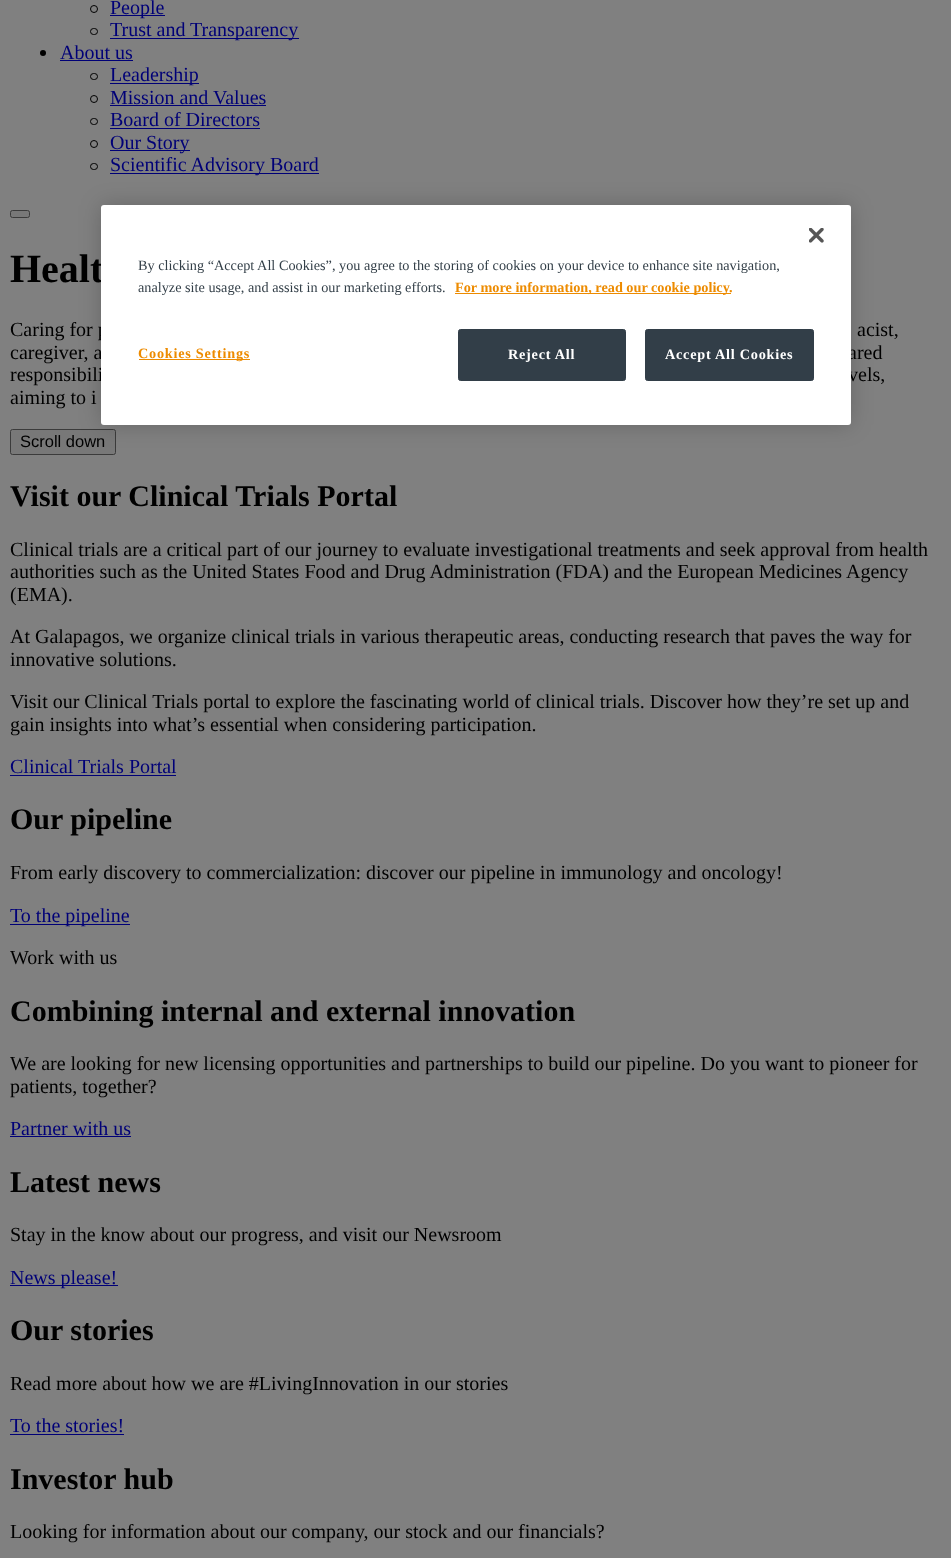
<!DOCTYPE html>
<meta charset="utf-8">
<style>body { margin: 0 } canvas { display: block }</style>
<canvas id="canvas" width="951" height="1558"></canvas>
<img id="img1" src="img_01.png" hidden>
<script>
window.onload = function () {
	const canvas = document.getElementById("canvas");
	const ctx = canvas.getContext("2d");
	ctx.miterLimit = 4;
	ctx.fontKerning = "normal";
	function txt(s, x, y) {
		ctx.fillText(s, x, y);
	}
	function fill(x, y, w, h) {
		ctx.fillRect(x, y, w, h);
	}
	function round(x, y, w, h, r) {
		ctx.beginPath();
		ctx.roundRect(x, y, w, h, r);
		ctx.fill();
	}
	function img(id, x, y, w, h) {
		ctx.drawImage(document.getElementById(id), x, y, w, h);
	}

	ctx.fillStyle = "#808080";
	fill(0, 0, 951, 1558);
	ctx.beginPath();
	ctx.arc(94, 9, 3.5, 0, Math.PI * 2);
	ctx.strokeStyle = "#000000";
	ctx.stroke();
	ctx.fillStyle = "#000077";
	fill(110, 15, 55, 1);
	ctx.beginPath();
	ctx.roundRect(90.5, 28.5, 7, 6, 3);
	ctx.stroke();
	fill(110, 38, 189, 1);
	ctx.fillStyle = "#000000";
	ctx.beginPath();
	ctx.arc(43, 53, 3, 0, Math.PI * 2);
	ctx.fill();
	ctx.fillStyle = "#000077";
	fill(60, 60, 73, 1);
	ctx.beginPath();
	ctx.roundRect(90.5, 73.5, 7, 6, 3);
	ctx.stroke();
	fill(110, 83, 89, 1);
	ctx.beginPath();
	ctx.arc(94, 99, 3.5, 0, Math.PI * 2);
	ctx.stroke();
	fill(110, 105, 156, 1);
	ctx.beginPath();
	ctx.roundRect(90.5, 118.5, 7, 6, 3);
	ctx.stroke();
	fill(110, 128, 150, 1);
	ctx.beginPath();
	ctx.arc(94, 144, 3.5, 0, Math.PI * 2);
	ctx.stroke();
	fill(110, 150, 80, 1);
	ctx.beginPath();
	ctx.roundRect(90.5, 163.5, 7, 6, 3);
	ctx.stroke();
	fill(110, 173, 209, 1);
	ctx.fillStyle = "#787878";
	ctx.beginPath();
	ctx.roundRect(10.5, 210.5, 19, 7, 2);
	ctx.fill();
	ctx.strokeStyle = "#3B3B3B";
	ctx.stroke();
	ctx.beginPath();
	ctx.roundRect(10.5, 429.5, 105, 25, 2);
	ctx.fill();
	ctx.stroke();
	ctx.fillStyle = "#000077";
	fill(10, 775, 166, 1);
	fill(10, 924, 120, 1);
	fill(10, 1136, 121, 1);
	fill(10, 1285, 108, 1);
	fill(10, 1434, 114, 1);
	ctx.fillStyle = "rgba(0, 0, 0, 0.2)";
	ctx.filter = "blur(11px)";
	ctx.beginPath();
	ctx.roundRect(101, 205, 750, 220, 3);
	ctx.fill();
	ctx.filter = "none";
	ctx.font = "20px Liberation Serif";
	ctx.fillStyle = "#000077";
	txt("People", 110, 14);
	txt("Trust and Transparency", 110, 36);
	txt("About us", 60, 59);
	txt("Leadership", 110, 81);
	txt("Mission and Values", 110, 104);
	txt("Board of Directors", 110, 126);
	txt("Our Story", 110, 149);
	txt("Scientific Advisory Board", 110, 171);
	ctx.font = "bold 40px Liberation Serif";
	ctx.fillStyle = "#000000";
	txt("Healt", 10, 282);
	ctx.font = "20px Liberation Serif";
	txt("Caring for p", 10, 336);
	txt("acist,", 857, 336);
	txt("caregiver, a", 10, 359);
	txt("ared", 848, 359);
	txt("responsibili", 10, 381);
	txt("vels,", 848, 381);
	txt("aiming to i", 10, 404);
	ctx.font = "16.5px Liberation Sans";
	txt("Scroll down", 20, 447);
	ctx.font = "bold 30px Liberation Serif";
	txt("Visit our Clinical Trials Portal", 10, 506);
	ctx.font = "20px Liberation Serif";
	txt("Clinical trials are a critical part of our journey to evaluate investigational treatments and seek approval from health", 10, 556);
	txt("authorities such as the United States Food and Drug Administration (FDA) and the European Medicines Agency", 10, 578);
	txt("(EMA).", 10, 601);
	txt("At Galapagos, we organize clinical trials in various therapeutic areas, conducting research that paves the way for", 10, 643);
	txt("innovative solutions.", 10, 666);
	txt("Visit our Clinical Trials portal to explore the fascinating world of clinical trials. Discover how they’re set up and", 10, 708);
	txt("gain insights into what’s essential when considering participation.", 10, 731);
	ctx.fillStyle = "#000077";
	txt("Clinical Trials Portal", 10, 773);
	ctx.font = "bold 30px Liberation Serif";
	ctx.fillStyle = "#000000";
	txt("Our pipeline", 10, 829);
	ctx.font = "20px Liberation Serif";
	txt("From early discovery to commercialization: discover our pipeline in immunology and oncology!", 10, 879);
	ctx.fillStyle = "#000077";
	txt("To the pipeline", 10, 922);
	ctx.fillStyle = "#000000";
	txt("Work with us", 10, 964);
	ctx.font = "bold 30px Liberation Serif";
	txt("Combining internal and external innovation", 10, 1021);
	ctx.font = "20px Liberation Serif";
	txt("We are looking for new licensing opportunities and partnerships to build our pipeline. Do you want to pioneer for", 10, 1070);
	txt("patients, together?", 10, 1093);
	ctx.fillStyle = "#000077";
	txt("Partner with us", 10, 1135);
	ctx.font = "bold 30px Liberation Serif";
	ctx.fillStyle = "#000000";
	txt("Latest news", 10, 1192);
	ctx.font = "20px Liberation Serif";
	txt("Stay in the know about our progress, and visit our Newsroom", 10, 1241);
	ctx.fillStyle = "#000077";
	txt("News please!", 10, 1284);
	ctx.font = "bold 30px Liberation Serif";
	ctx.fillStyle = "#000000";
	txt("Our stories", 10, 1340);
	ctx.font = "20px Liberation Serif";
	txt("Read more about how we are #LivingInnovation in our stories", 10, 1390);
	ctx.fillStyle = "#000077";
	txt("To the stories!", 10, 1432);
	ctx.font = "bold 30px Liberation Serif";
	ctx.fillStyle = "#000000";
	txt("Investor hub", 10, 1489);
	ctx.font = "20px Liberation Serif";
	txt("Looking for information about our company, our stock and our financials?", 10, 1538);
	ctx.fillStyle = "#FFFFFF";
	round(101, 205, 750, 220, 3);
	img("img1", 809, 228, 15, 15);
	ctx.font = "14.25px Liberation Serif";
	ctx.fillStyle = "#333F48";
	txt("By clicking “Accept All Cookies”, you agree to the storing of cookies on your device to enhance site navigation,", 138, 270);
	txt("analyze site usage, and assist in our marketing efforts.", 138, 292);
	ctx.fillStyle = "#ED8B00";
	fill(455, 293, 276, 1);
	ctx.font = "bold 14.25px Liberation Serif";
	txt("For more information, read our cookie policy.", 455, 292);
	fill(139, 359, 111, 1);
	ctx.letterSpacing = "0.75px";
	txt("Cookies Settings", 138, 358);
	ctx.fillStyle = "#323E48";
	ctx.beginPath();
	ctx.roundRect(458.5, 329.5, 167, 51, 2);
	ctx.fill();
	ctx.strokeStyle = "#323E48";
	ctx.stroke();
	ctx.fillStyle = "#FFFFFF";
	txt("Reject All", 508, 359);
	ctx.fillStyle = "#323E48";
	ctx.beginPath();
	ctx.roundRect(645.5, 329.5, 168, 51, 2);
	ctx.fill();
	ctx.stroke();
	ctx.fillStyle = "#FFFFFF";
	txt("Accept All Cookies", 665, 359);
};
</script>
